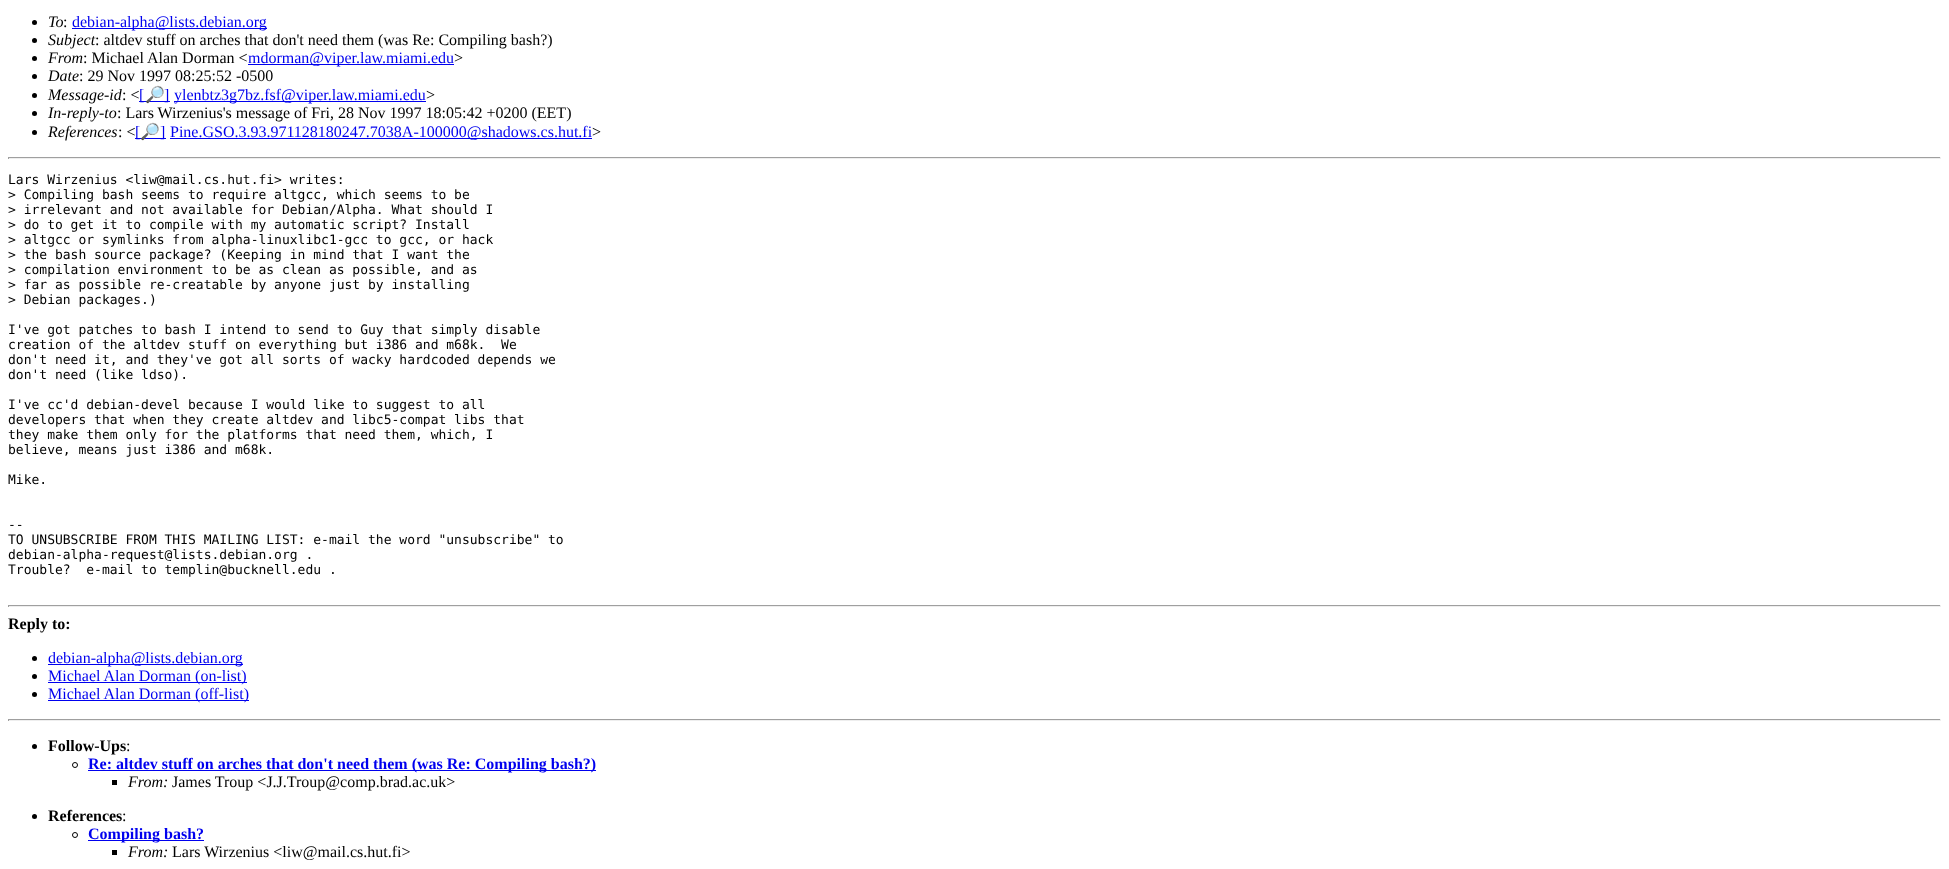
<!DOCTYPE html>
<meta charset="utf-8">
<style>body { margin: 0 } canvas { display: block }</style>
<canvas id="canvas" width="1949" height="869"></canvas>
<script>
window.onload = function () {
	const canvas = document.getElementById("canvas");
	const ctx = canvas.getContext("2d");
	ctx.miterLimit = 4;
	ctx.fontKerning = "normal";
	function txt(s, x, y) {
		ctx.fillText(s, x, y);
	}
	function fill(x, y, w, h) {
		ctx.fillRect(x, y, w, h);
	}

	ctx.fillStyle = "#FFFFFF";
	fill(0, 0, 1949, 869);
	ctx.fillStyle = "#000000";
	ctx.beginPath();
	ctx.arc(34.5, 22.5, 2.5, 0, Math.PI * 2);
	ctx.fill();
	ctx.fillStyle = "#0000EE";
	fill(72, 28, 195, 1);
	ctx.fillStyle = "#000000";
	ctx.beginPath();
	ctx.arc(34.5, 40.5, 2.5, 0, Math.PI * 2);
	ctx.fill();
	ctx.beginPath();
	ctx.arc(34.5, 58.5, 2.5, 0, Math.PI * 2);
	ctx.fill();
	ctx.fillStyle = "#0000EE";
	fill(248, 64, 206, 1);
	ctx.fillStyle = "#000000";
	ctx.beginPath();
	ctx.arc(34.5, 76.5, 2.5, 0, Math.PI * 2);
	ctx.fill();
	ctx.beginPath();
	ctx.arc(34.5, 95.5, 2.5, 0, Math.PI * 2);
	ctx.fill();
	ctx.fillStyle = "#0000EE";
	fill(139, 101, 31, 1);
	fill(174, 101, 252, 1);
	ctx.fillStyle = "#000000";
	ctx.beginPath();
	ctx.arc(34.5, 113.5, 2.5, 0, Math.PI * 2);
	ctx.fill();
	ctx.beginPath();
	ctx.arc(34.5, 132.5, 2.5, 0, Math.PI * 2);
	ctx.fill();
	ctx.fillStyle = "#0000EE";
	fill(135, 138, 31, 1);
	fill(170, 138, 422, 1);
	ctx.fillStyle = "#9F9F9F";
	fill(8, 157, 1933, 1);
	ctx.fillStyle = "#EEEEEE";
	fill(1940, 157, 1, 2);
	fill(8, 158, 1933, 1);
	ctx.fillStyle = "#9F9F9F";
	fill(8, 157, 1, 2);
	fill(8, 605, 1933, 1);
	ctx.fillStyle = "#EEEEEE";
	fill(1940, 605, 1, 2);
	fill(8, 606, 1933, 1);
	ctx.fillStyle = "#9F9F9F";
	fill(8, 605, 1, 2);
	ctx.fillStyle = "#000000";
	ctx.beginPath();
	ctx.arc(34.5, 658.5, 2.5, 0, Math.PI * 2);
	ctx.fill();
	ctx.fillStyle = "#0000EE";
	fill(48, 664, 195, 1);
	ctx.fillStyle = "#000000";
	ctx.beginPath();
	ctx.arc(34.5, 676.5, 2.5, 0, Math.PI * 2);
	ctx.fill();
	ctx.fillStyle = "#0000EE";
	fill(48, 682, 199, 1);
	ctx.fillStyle = "#000000";
	ctx.beginPath();
	ctx.arc(34.5, 694.5, 2.5, 0, Math.PI * 2);
	ctx.fill();
	ctx.fillStyle = "#0000EE";
	fill(48, 700, 201, 1);
	ctx.fillStyle = "#9F9F9F";
	fill(8, 719, 1933, 1);
	ctx.fillStyle = "#EEEEEE";
	fill(1940, 719, 1, 2);
	fill(8, 720, 1933, 1);
	ctx.fillStyle = "#9F9F9F";
	fill(8, 719, 1, 2);
	ctx.fillStyle = "#000000";
	ctx.beginPath();
	ctx.arc(34.5, 746.5, 2.5, 0, Math.PI * 2);
	ctx.fill();
	ctx.beginPath();
	ctx.arc(75, 765, 2.5, 0, Math.PI * 2);
	ctx.strokeStyle = "#000000";
	ctx.stroke();
	ctx.fillStyle = "#0000EE";
	fill(88, 770, 508, 1);
	ctx.fillStyle = "#000000";
	fill(112, 780, 5, 5);
	ctx.beginPath();
	ctx.arc(34.5, 816.5, 2.5, 0, Math.PI * 2);
	ctx.fill();
	ctx.beginPath();
	ctx.arc(75, 835, 2.5, 0, Math.PI * 2);
	ctx.stroke();
	ctx.fillStyle = "#0000EE";
	fill(88, 840, 116, 1);
	ctx.fillStyle = "#000000";
	fill(112, 850, 5, 5);
	ctx.font = "italic 16px Liberation Serif";
	txt("To", 48, 27);
	ctx.font = "16px Liberation Serif";
	txt(":", 63, 27);
	ctx.fillStyle = "#0000EE";
	txt("debian-alpha@lists.debian.org", 72, 27);
	ctx.font = "italic 16px Liberation Serif";
	ctx.fillStyle = "#000000";
	txt("Subject", 48, 45);
	ctx.font = "16px Liberation Serif";
	txt(": altdev stuff on arches that don't need them (was Re: Compiling bash?)", 95, 45);
	ctx.font = "italic 16px Liberation Serif";
	txt("From", 48, 63);
	ctx.font = "16px Liberation Serif";
	txt(": Michael Alan Dorman <", 83, 63);
	ctx.fillStyle = "#0000EE";
	txt("mdorman@viper.law.miami.edu", 248, 63);
	ctx.fillStyle = "#000000";
	txt(">", 454, 63);
	ctx.font = "italic 16px Liberation Serif";
	txt("Date", 48, 81);
	ctx.font = "16px Liberation Serif";
	txt(": 29 Nov 1997 08:25:52 -0500", 79, 81);
	ctx.font = "italic 16px Liberation Serif";
	txt("Message-id", 48, 100);
	ctx.font = "16px Liberation Serif";
	txt(": <", 122, 100);
	ctx.fillStyle = "#0000EE";
	txt("[", 139, 100);
	ctx.font = "16px Noto Color Emoji";
	txt("🔎", 145, 100);
	ctx.font = "16px Liberation Serif";
	txt("]", 164, 100);
	txt("ylenbtz3g7bz.fsf@viper.law.miami.edu", 174, 100);
	ctx.fillStyle = "#000000";
	txt(">", 426, 100);
	ctx.font = "italic 16px Liberation Serif";
	txt("In-reply-to", 48, 118);
	ctx.font = "16px Liberation Serif";
	txt(": Lars Wirzenius's message of Fri, 28 Nov 1997 18:05:42 +0200 (EET)", 117, 118);
	ctx.font = "italic 16px Liberation Serif";
	txt("References", 48, 137);
	ctx.font = "16px Liberation Serif";
	txt(": <", 118, 137);
	ctx.fillStyle = "#0000EE";
	txt("[", 135, 137);
	ctx.font = "16px Noto Color Emoji";
	txt("🔎", 140, 137);
	ctx.font = "16px Liberation Serif";
	txt("]", 160, 137);
	txt("Pine.GSO.3.93.971128180247.7038A-100000@shadows.cs.hut.fi", 170, 137);
	ctx.fillStyle = "#000000";
	txt(">", 592, 137);
	ctx.font = "13px DejaVu Sans Mono";
	txt("Lars Wirzenius <liw@mail.cs.hut.fi> writes:", 8, 184);
	txt("> Compiling bash seems to require altgcc, which seems to be", 8, 199);
	txt("> irrelevant and not available for Debian/Alpha. What should I", 8, 214);
	txt("> do to get it to compile with my automatic script? Install", 8, 229);
	txt("> altgcc or symlinks from alpha-linuxlibc1-gcc to gcc, or hack", 8, 244);
	txt("> the bash source package? (Keeping in mind that I want the", 8, 259);
	txt("> compilation environment to be as clean as possible, and as", 8, 274);
	txt("> far as possible re-creatable by anyone just by installing", 8, 289);
	txt("> Debian packages.)", 8, 304);
	txt("I've got patches to bash I intend to send to Guy that simply disable", 8, 334);
	txt("creation of the altdev stuff on everything but i386 and m68k.  We", 8, 349);
	txt("don't need it, and they've got all sorts of wacky hardcoded depends we", 8, 364);
	txt("don't need (like ldso).", 8, 379);
	txt("I've cc'd debian-devel because I would like to suggest to all", 8, 409);
	txt("developers that when they create altdev and libc5-compat libs that", 8, 424);
	txt("they make them only for the platforms that need them, which, I", 8, 439);
	txt("believe, means just i386 and m68k.", 8, 454);
	txt("Mike.", 8, 484);
	txt("--", 8, 529);
	txt("TO UNSUBSCRIBE FROM THIS MAILING LIST: e-mail the word \"unsubscribe\" to", 8, 544);
	txt("debian-alpha-request@lists.debian.org .", 8, 559);
	txt("Trouble?  e-mail to templin@bucknell.edu .", 8, 574);
	ctx.font = "bold 16px Liberation Serif";
	txt("Reply to:", 8, 629);
	ctx.font = "16px Liberation Serif";
	ctx.fillStyle = "#0000EE";
	txt("debian-alpha@lists.debian.org", 48, 663);
	txt("Michael Alan Dorman (on-list)", 48, 681);
	txt("Michael Alan Dorman (off-list)", 48, 699);
	ctx.font = "bold 16px Liberation Serif";
	ctx.fillStyle = "#000000";
	txt("Follow-Ups", 48, 751);
	ctx.font = "16px Liberation Serif";
	txt(":", 126, 751);
	ctx.font = "bold 16px Liberation Serif";
	ctx.fillStyle = "#0000EE";
	txt("Re: altdev stuff on arches that don't need them (was Re: Compiling bash?)", 88, 769);
	ctx.font = "italic 16px Liberation Serif";
	ctx.fillStyle = "#000000";
	txt("From:", 128, 787);
	ctx.font = "16px Liberation Serif";
	txt("James Troup <J.J.Troup@comp.brad.ac.uk>", 172, 787);
	ctx.font = "bold 16px Liberation Serif";
	txt("References", 48, 821);
	ctx.font = "16px Liberation Serif";
	txt(":", 122, 821);
	ctx.font = "bold 16px Liberation Serif";
	ctx.fillStyle = "#0000EE";
	txt("Compiling bash?", 88, 839);
	ctx.font = "italic 16px Liberation Serif";
	ctx.fillStyle = "#000000";
	txt("From:", 128, 857);
	ctx.font = "16px Liberation Serif";
	txt("Lars Wirzenius <liw@mail.cs.hut.fi>", 172, 857);
};
</script>
